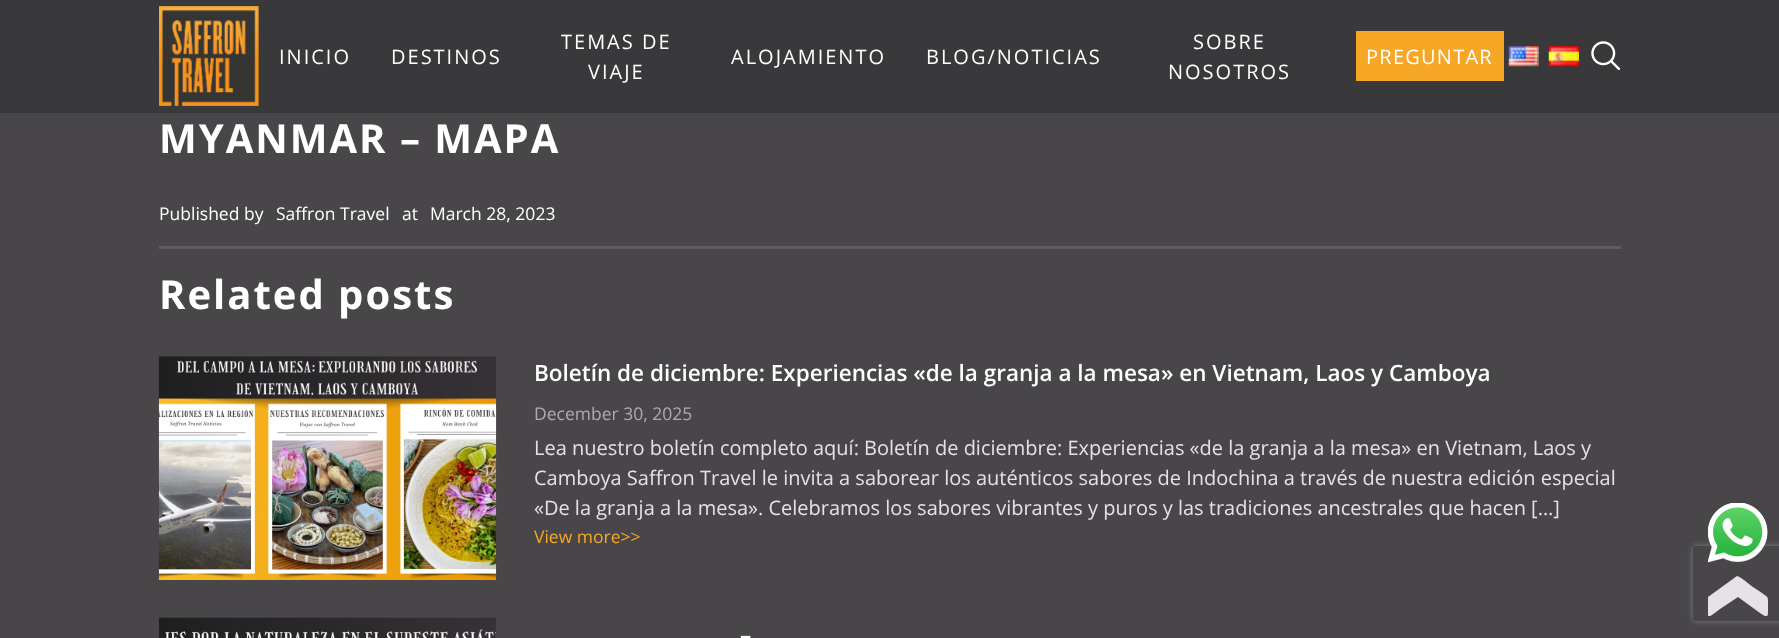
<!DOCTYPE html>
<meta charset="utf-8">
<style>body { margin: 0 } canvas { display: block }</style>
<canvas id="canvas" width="1779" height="638"></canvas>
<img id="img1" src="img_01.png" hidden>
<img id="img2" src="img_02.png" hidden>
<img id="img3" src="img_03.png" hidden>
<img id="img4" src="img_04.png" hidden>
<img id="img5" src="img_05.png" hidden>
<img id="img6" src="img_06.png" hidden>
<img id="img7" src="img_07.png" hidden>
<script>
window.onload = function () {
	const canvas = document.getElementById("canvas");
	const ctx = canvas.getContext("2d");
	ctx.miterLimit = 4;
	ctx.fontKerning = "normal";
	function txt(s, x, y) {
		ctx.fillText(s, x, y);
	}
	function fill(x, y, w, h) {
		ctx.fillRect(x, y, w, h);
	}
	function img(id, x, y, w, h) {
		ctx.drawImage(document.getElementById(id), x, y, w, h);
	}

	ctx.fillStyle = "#484649";
	fill(0, 0, 1779, 638);
	ctx.fillStyle = "#39383B";
	fill(0, 0, 1779, 113);
	img("img1", 159, 6, 100, 100);
	ctx.fillStyle = "#F6A726";
	fill(1356, 31, 148, 50);
	img("img2", 1508, 46, 31, 21);
	img("img3", 1548, 46, 31, 21);
	img("img4", 1591, 41, 29, 30);
	ctx.fillStyle = "#5E5C5F";
	fill(159, 246, 1462, 3);
	img("img5", 158, 356, 339, 224);
	img("img6", 159, 617, 338, 21);
	ctx.save();
	ctx.beginPath();
	ctx.moveTo(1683, 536);
	ctx.lineTo(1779, 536);
	ctx.lineTo(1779, 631);
	ctx.lineTo(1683, 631);
	ctx.closePath();
	ctx.moveTo(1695.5, 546);
	ctx.lineTo(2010.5, 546);
	ctx.bezierCurveTo(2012, 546, 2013, 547, 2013, 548.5);
	ctx.lineTo(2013, 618.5);
	ctx.bezierCurveTo(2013, 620, 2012, 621, 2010.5, 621);
	ctx.lineTo(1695.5, 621);
	ctx.bezierCurveTo(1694, 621, 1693, 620, 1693, 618.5);
	ctx.lineTo(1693, 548.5);
	ctx.bezierCurveTo(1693, 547, 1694, 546, 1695.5, 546);
	ctx.closePath();
	ctx.clip("evenodd");
	ctx.fillStyle = "#808080";
	ctx.filter = "blur(3px)";
	ctx.beginPath();
	ctx.roundRect(1693, 546, 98, 75, 2.5);
	ctx.fill();
	ctx.filter = "none";
	ctx.restore();
	img("img7", 1708, 503, 60, 60);
	ctx.save();
	ctx.beginPath();
	ctx.rect(1708, 576, 60, 40);
	ctx.clip();
	ctx.fillStyle = "#E6E1E5";
	ctx.beginPath();
	ctx.moveTo(1708, 597);
	ctx.bezierCurveTo(1707, 598, 1707, 613, 1708, 615);
	ctx.bezierCurveTo(1708, 619, 1713, 614, 1720, 609);
	ctx.lineTo(1738, 597);
	ctx.lineTo(1760, 613);
	ctx.bezierCurveTo(1765, 616, 1768, 619, 1768, 612);
	ctx.lineTo(1768, 601);
	ctx.bezierCurveTo(1768, 596, 1767, 597, 1762, 593);
	ctx.lineTo(1753, 587);
	ctx.bezierCurveTo(1750, 585, 1740, 576, 1737, 576);
	ctx.closePath();
	ctx.fill();
	ctx.restore();
	ctx.letterSpacing = "2px";
	ctx.font = "20px Open Sans";
	ctx.fillStyle = "#FFFFFF";
	txt("INICIO", 279, 64);
	txt("DESTINOS", 391, 64);
	txt("TEMAS DE", 561, 49);
	txt("VIAJE", 588, 79);
	txt("ALOJAMIENTO", 731, 64);
	txt("BLOG/NOTICIAS", 926, 64);
	txt("SOBRE", 1193, 49);
	txt("NOSOTROS", 1168, 79);
	ctx.letterSpacing = "1.25px";
	txt("PREGUNTAR", 1366, 64);
	ctx.letterSpacing = "2px";
	ctx.font = "bold 40px Open Sans";
	txt("MYANMAR – MAPA", 159, 153);
	ctx.letterSpacing = "0px";
	ctx.font = "17.5px Open Sans";
	txt("Published by", 159, 220);
	txt("Saffron Travel", 276, 220);
	txt("at", 402, 220);
	txt("March 28, 2023", 430, 220);
	ctx.letterSpacing = "2px";
	ctx.font = "bold 40px Open Sans";
	txt("Related posts", 159, 309);
	ctx.letterSpacing = "0px";
	ctx.font = "600 22.5px Open Sans";
	txt("Boletín de diciembre: Experiencias «de la granja a la mesa» en Vietnam, Laos y Camboya", 534, 381);
	ctx.font = "17.5px Open Sans";
	ctx.fillStyle = "#AEAAAE";
	txt("December 30, 2025", 534, 420);
	ctx.font = "20px Open Sans";
	ctx.fillStyle = "#E6E1E5";
	txt("Lea nuestro boletín completo aquí: Boletín de diciembre: Experiencias «de la granja a la mesa» en Vietnam, Laos y", 534, 455);
	txt("Camboya Saffron Travel le invita a saborear los auténticos sabores de Indochina a través de nuestra edición especial", 534, 485);
	txt("«De la granja a la mesa». Celebramos los sabores vibrantes y puros y las tradiciones ancestrales que hacen […]", 534, 515);
	ctx.font = "17.5px Open Sans";
	ctx.fillStyle = "#F6A726";
	txt("View more>>", 534, 543);
	ctx.font = "600 22.5px Open Sans";
	ctx.fillStyle = "#FFFFFF";
	txt("–", 740, 643);
};
</script>
